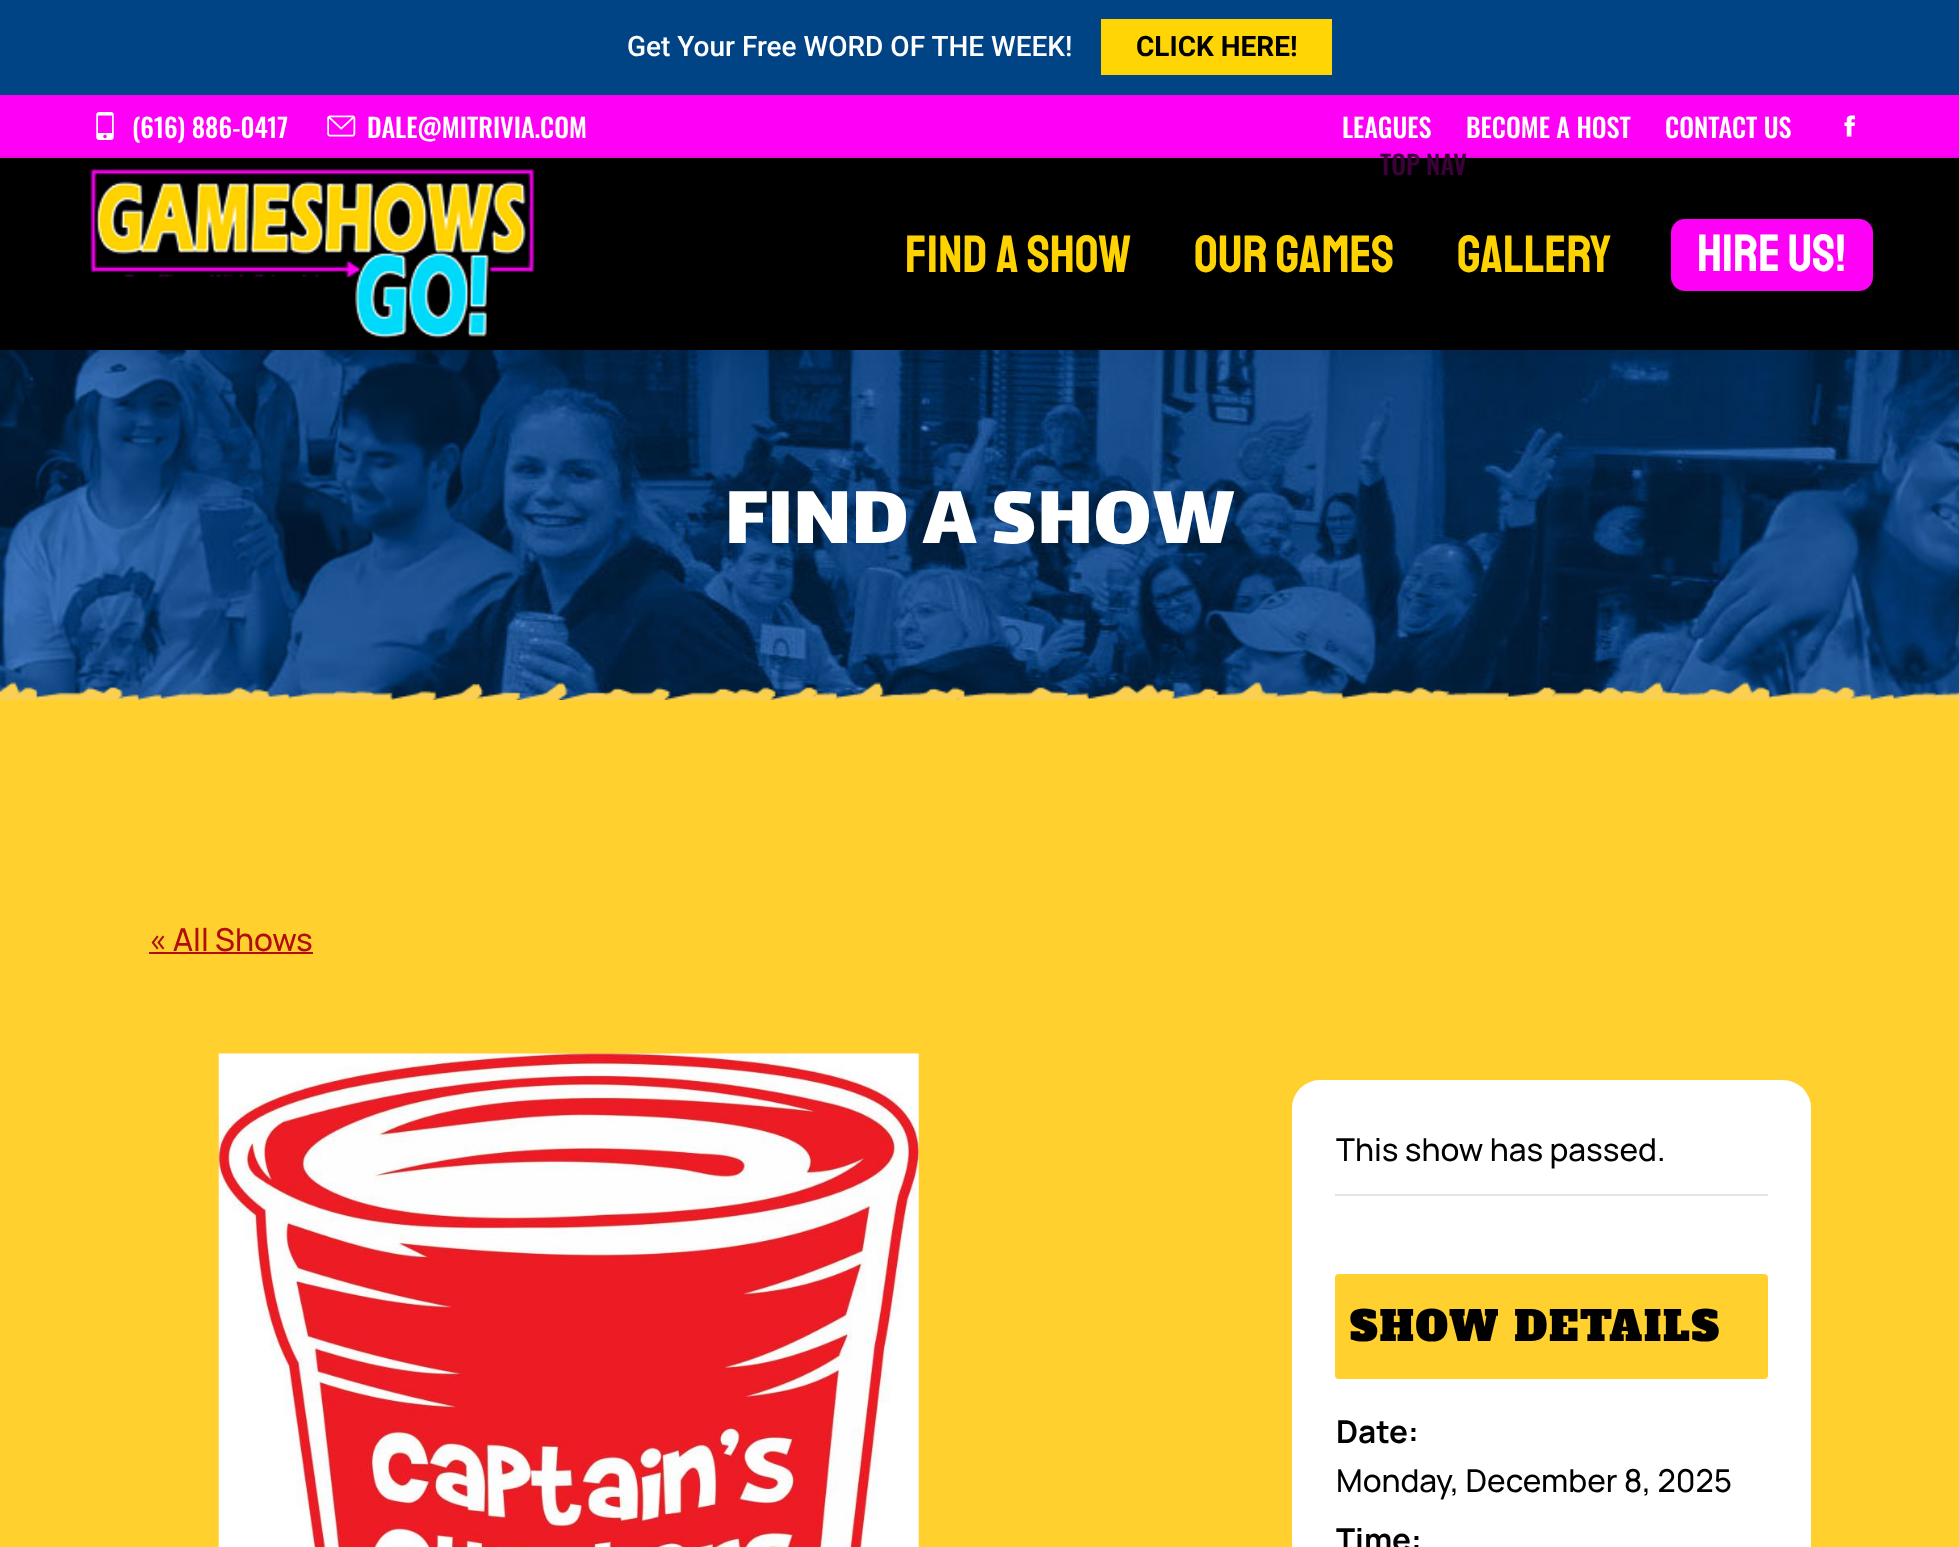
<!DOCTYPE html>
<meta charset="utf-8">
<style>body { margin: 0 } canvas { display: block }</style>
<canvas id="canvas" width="1959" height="1547"></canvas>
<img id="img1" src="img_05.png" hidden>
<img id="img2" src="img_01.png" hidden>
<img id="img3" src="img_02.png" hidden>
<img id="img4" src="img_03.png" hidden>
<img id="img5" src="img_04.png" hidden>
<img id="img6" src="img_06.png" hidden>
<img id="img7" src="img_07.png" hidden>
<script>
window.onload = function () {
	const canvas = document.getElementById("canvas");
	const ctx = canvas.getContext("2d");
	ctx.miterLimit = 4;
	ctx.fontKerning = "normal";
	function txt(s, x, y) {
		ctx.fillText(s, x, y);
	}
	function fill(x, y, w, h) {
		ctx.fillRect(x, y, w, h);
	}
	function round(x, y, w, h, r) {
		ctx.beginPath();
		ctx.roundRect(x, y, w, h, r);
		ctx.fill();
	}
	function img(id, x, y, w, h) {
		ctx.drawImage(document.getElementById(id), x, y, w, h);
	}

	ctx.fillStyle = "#FFFFFF";
	fill(0, 0, 1959, 1547);
	ctx.fillStyle = "#004486";
	fill(0, 0, 1959, 95);
	ctx.fillStyle = "#FFD505";
	fill(1101, 19, 231, 56);
	img("img1", 0, 350, 1959, 350);
	ctx.save();
	ctx.beginPath();
	ctx.rect(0, 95, 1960, 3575);
	ctx.clip();
	ctx.fillStyle = "rgba(0, 0, 0, 0.07)";
	ctx.filter = "blur(13px)";
	ctx.beginPath();
	ctx.rect(-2, 93, 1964, 259);
	ctx.fill();
	ctx.filter = "none";
	ctx.restore();
	ctx.fillStyle = "#000000";
	fill(0, 158, 1959, 192);
	ctx.fillStyle = "#FF00F6";
	fill(0, 95, 1959, 63);
	img("img2", 96, 112, 18, 28);
	img("img3", 327, 115, 29, 22);
	img("img4", 1844, 115, 12, 22);
	ctx.fillStyle = "rgba(51, 51, 51, 0.11)";
	fill(0, 156, 1959, 2);
	img("img5", 90, 169, 445, 170);
	ctx.fillStyle = "#FF00F6";
	round(1671, 219, 202, 72, 14);
	img("img6", 0, 682, 1959, 18);
	ctx.fillStyle = "#FFD02E";
	fill(0, 700, 1959, 847);
	ctx.fillStyle = "#B00D0D";
	fill(149, 952, 164, 2);
	img("img7", 218, 1053, 701, 494);
	ctx.fillStyle = "#FFFFFF";
	round(1292, 1080, 519, 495, 28);
	ctx.fillStyle = "#E4E4E4";
	fill(1335, 1194, 433, 2);
	ctx.fillStyle = "#FFD02E";
	round(1335, 1274, 433, 105, 4);
	ctx.font = "500 28px Roboto";
	ctx.fillStyle = "#FFFFFF";
	txt("Get Your Free WORD OF THE WEEK!", 627, 56);
	ctx.font = "bold 28px Roboto";
	ctx.fillStyle = "#000000";
	txt("CLICK HERE!", 1136, 56);
	ctx.font = "500 26.25px Oswald";
	ctx.fillStyle = "#FFFFFF";
	txt("(616) 886-0417", 132, 138);
	txt("DALE@MITRIVIA.COM", 367, 138);
	txt("LEAGUES", 1342, 138);
	txt("BECOME A HOST", 1466, 138);
	txt("CONTACT US", 1665, 138);
	ctx.fillStyle = "#3D003B";
	txt("TOP NAV", 1380, 175);
	ctx.font = "52.5px Staatliches";
	ctx.fillStyle = "#FFD201";
	txt("FIND A SHOW", 905, 272);
	txt("OUR GAMES", 1194, 272);
	txt("GALLERY", 1457, 272);
	ctx.fillStyle = "#FFFFFF";
	txt("HIRE US!", 1697, 271);
	ctx.font = "91px Lalezar";
	txt("FIND A SHOW", 725, 543);
	ctx.font = "500 31.5px Manrope";
	ctx.fillStyle = "#B00D0D";
	txt("« All Shows", 149, 951);
	ctx.fillStyle = "#000000";
	txt("This show has passed.", 1336, 1161);
	ctx.letterSpacing = "1.75px";
	ctx.font = "41px Alfa Slab One";
	txt("SHOW DETAILS", 1350, 1341);
	ctx.letterSpacing = "0px";
	ctx.font = "bold 31.5px Manrope";
	txt("Date:", 1336, 1443);
	ctx.font = "500 31.5px Manrope";
	txt("Monday, December 8, 2025", 1336, 1492);
	ctx.font = "bold 31.5px Manrope";
	txt("Time:", 1336, 1551);
};
</script>
